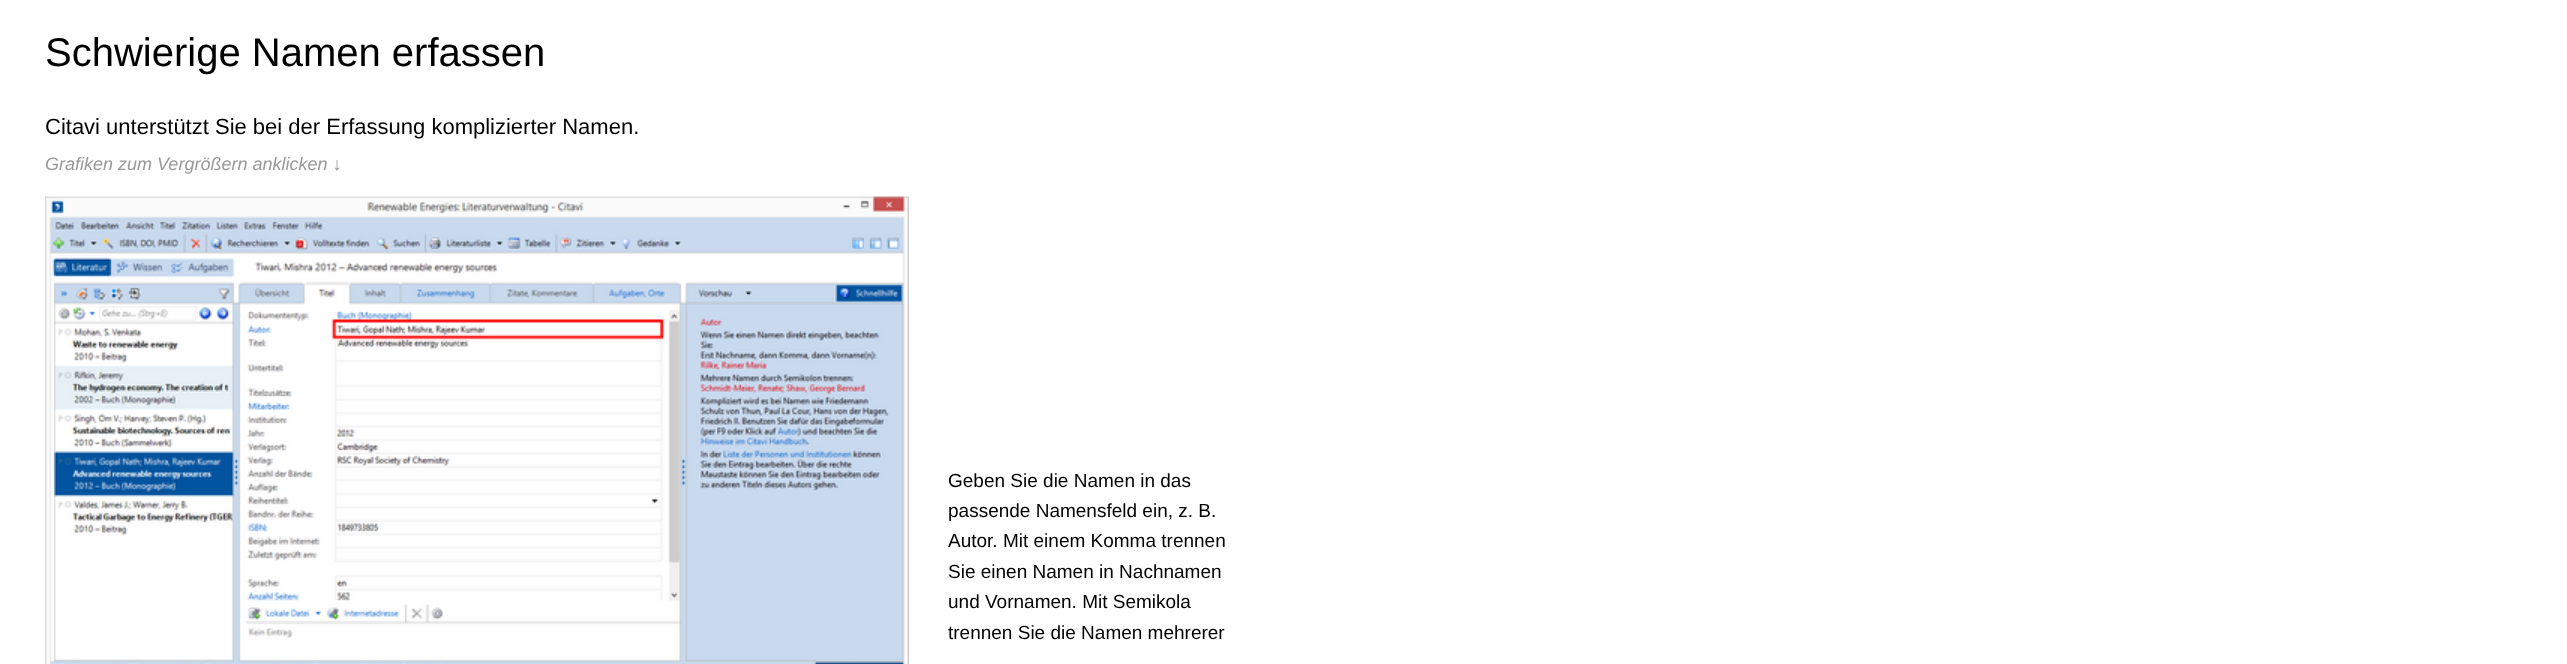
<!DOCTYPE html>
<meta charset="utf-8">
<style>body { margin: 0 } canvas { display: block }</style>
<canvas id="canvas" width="2567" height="664"></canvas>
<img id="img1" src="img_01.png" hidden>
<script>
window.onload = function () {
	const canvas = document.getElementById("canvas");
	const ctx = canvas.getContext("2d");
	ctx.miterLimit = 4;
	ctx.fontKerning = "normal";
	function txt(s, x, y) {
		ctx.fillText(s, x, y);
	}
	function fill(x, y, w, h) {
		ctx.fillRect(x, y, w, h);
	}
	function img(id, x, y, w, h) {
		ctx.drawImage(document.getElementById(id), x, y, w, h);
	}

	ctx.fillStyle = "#FFFFFF";
	fill(0, 0, 2567, 664);
	img("img1", 45, 196, 864, 468);
	ctx.font = "40px Liberation Sans";
	ctx.fillStyle = "#000000";
	txt("Schwierige Namen erfassen", 45, 66);
	ctx.font = "22px Liberation Sans";
	txt("Citavi unterstützt Sie bei der Erfassung komplizierter Namen.", 45, 134);
	ctx.font = "italic 18px Liberation Sans";
	ctx.fillStyle = "#999999";
	txt("Grafiken zum Vergrößern anklicken ↓", 45, 170);
	ctx.font = "19px Liberation Sans";
	ctx.fillStyle = "#000000";
	txt("Geben Sie die Namen in das", 948, 487);
	txt("passende Namensfeld ein, z. B.", 948, 517);
	txt("Autor. Mit einem Komma trennen", 948, 547);
	txt("Sie einen Namen in Nachnamen", 948, 578);
	txt("und Vornamen. Mit Semikola", 948, 608);
	txt("trennen Sie die Namen mehrerer", 948, 639);
};
</script>
